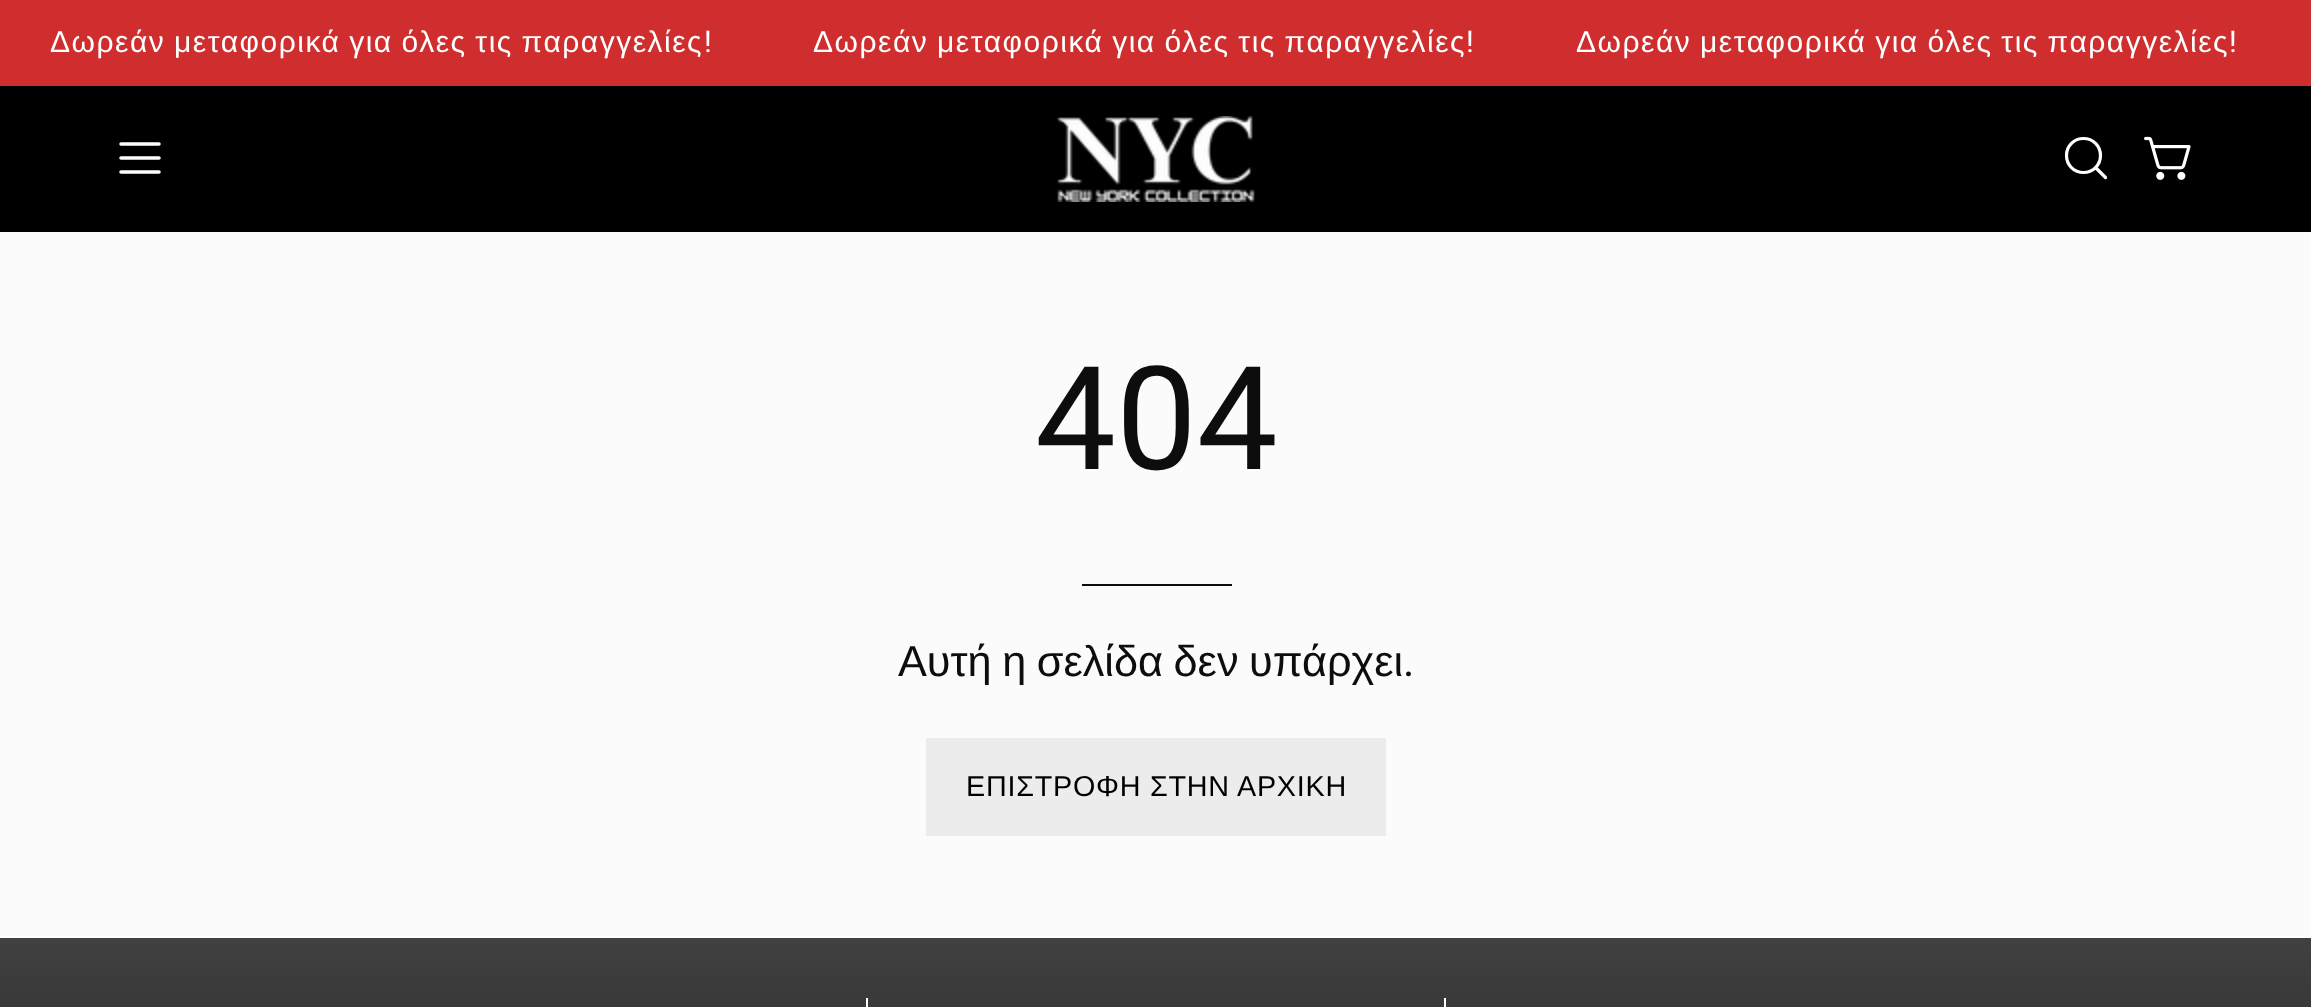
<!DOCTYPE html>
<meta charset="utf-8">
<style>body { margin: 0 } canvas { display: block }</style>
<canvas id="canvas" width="2311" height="1007"></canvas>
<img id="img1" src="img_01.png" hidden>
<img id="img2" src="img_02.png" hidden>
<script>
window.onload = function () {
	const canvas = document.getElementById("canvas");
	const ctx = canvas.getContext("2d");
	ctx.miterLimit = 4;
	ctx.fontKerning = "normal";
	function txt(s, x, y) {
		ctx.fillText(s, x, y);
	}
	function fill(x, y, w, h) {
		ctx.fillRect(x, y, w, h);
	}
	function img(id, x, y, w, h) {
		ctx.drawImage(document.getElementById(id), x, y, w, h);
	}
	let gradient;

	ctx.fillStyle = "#FBFBFB";
	fill(0, 0, 2311, 1007);
	ctx.fillStyle = "#D02E2E";
	fill(0, 0, 2311, 86);
	ctx.fillStyle = "#000000";
	fill(0, 86, 2311, 146);
	ctx.beginPath();
	ctx.moveTo(121, 158);
	ctx.lineTo(159, 158);
	ctx.moveTo(121, 144);
	ctx.lineTo(159, 144);
	ctx.moveTo(121, 172);
	ctx.lineTo(159, 172);
	ctx.strokeStyle = "#FFFFFF";
	ctx.lineWidth = 3.5;
	ctx.lineCap = "round";
	ctx.lineJoin = "round";
	ctx.stroke();
	img("img1", 1057, 116, 198, 86);
	ctx.beginPath();
	ctx.moveTo(2083.5, 172.5);
	ctx.bezierCurveTo(2093, 172.5, 2100.5, 165, 2100.5, 155.5);
	ctx.bezierCurveTo(2100.5, 146, 2093, 138.5, 2083.5, 138.5);
	ctx.bezierCurveTo(2074, 138.5, 2066.5, 146, 2066.5, 155.5);
	ctx.bezierCurveTo(2066.5, 165, 2074, 172.5, 2083.5, 172.5);
	ctx.closePath();
	ctx.moveTo(2095.5, 167.5);
	ctx.lineTo(2105.5, 177.5);
	ctx.lineWidth = 3.2;
	ctx.stroke();
	img("img2", 2144, 136, 47, 44);
	ctx.fillStyle = "#0D0D0D";
	fill(1082, 584, 150, 2);
	ctx.fillStyle = "#ECECEC";
	fill(926, 738, 460, 98);
	gradient = ctx.createLinearGradient(1156, 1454, 1156, 938);
	gradient.addColorStop(0, "#000000");
	gradient.addColorStop(1, "#414141");
	ctx.fillStyle = gradient;
	fill(0, 938, 2311, 69);
	ctx.fillStyle = "#FFFFFF";
	fill(0, 936, 2311, 2);
	fill(866, 998, 2, 9);
	fill(1444, 998, 2, 9);
	ctx.letterSpacing = "1.5px";
	ctx.wordSpacing = "-1px";
	ctx.font = "30px Liberation Sans";
	txt("Δωρεάν μεταφορικά για όλες τις παραγγελίες", 50, 52);
	ctx.wordSpacing = "0px";
	ctx.font = "30px Roboto";
	txt("!", 704, 52);
	ctx.wordSpacing = "-1px";
	ctx.font = "30px Liberation Sans";
	txt("Δωρεάν μεταφορικά για όλες τις παραγγελίες", 813, 52);
	ctx.wordSpacing = "0px";
	ctx.font = "30px Roboto";
	txt("!", 1466, 52);
	ctx.wordSpacing = "-1px";
	ctx.font = "30px Liberation Sans";
	txt("Δωρεάν μεταφορικά για όλες τις παραγγελίες", 1576, 52);
	ctx.wordSpacing = "0px";
	ctx.font = "30px Roboto";
	txt("!", 2229, 52);
	ctx.letterSpacing = "0px";
	ctx.font = "144px Roboto";
	ctx.fillStyle = "#0D0D0D";
	txt("404", 1035, 469);
	ctx.wordSpacing = "-1.5px";
	ctx.font = "43.25px Liberation Sans";
	txt("Αυτή η σελίδα δεν υπάρχει", 898, 676);
	ctx.wordSpacing = "0px";
	ctx.font = "43.25px Roboto";
	txt(".", 1403, 676);
	ctx.letterSpacing = "0.75px";
	ctx.font = "28.75px Liberation Sans";
	ctx.fillStyle = "#000000";
	txt("ΕΠΙΣΤΡΟΦΗ ΣΤΗΝ ΑΡΧΙΚΗ", 966, 796);
};
</script>
